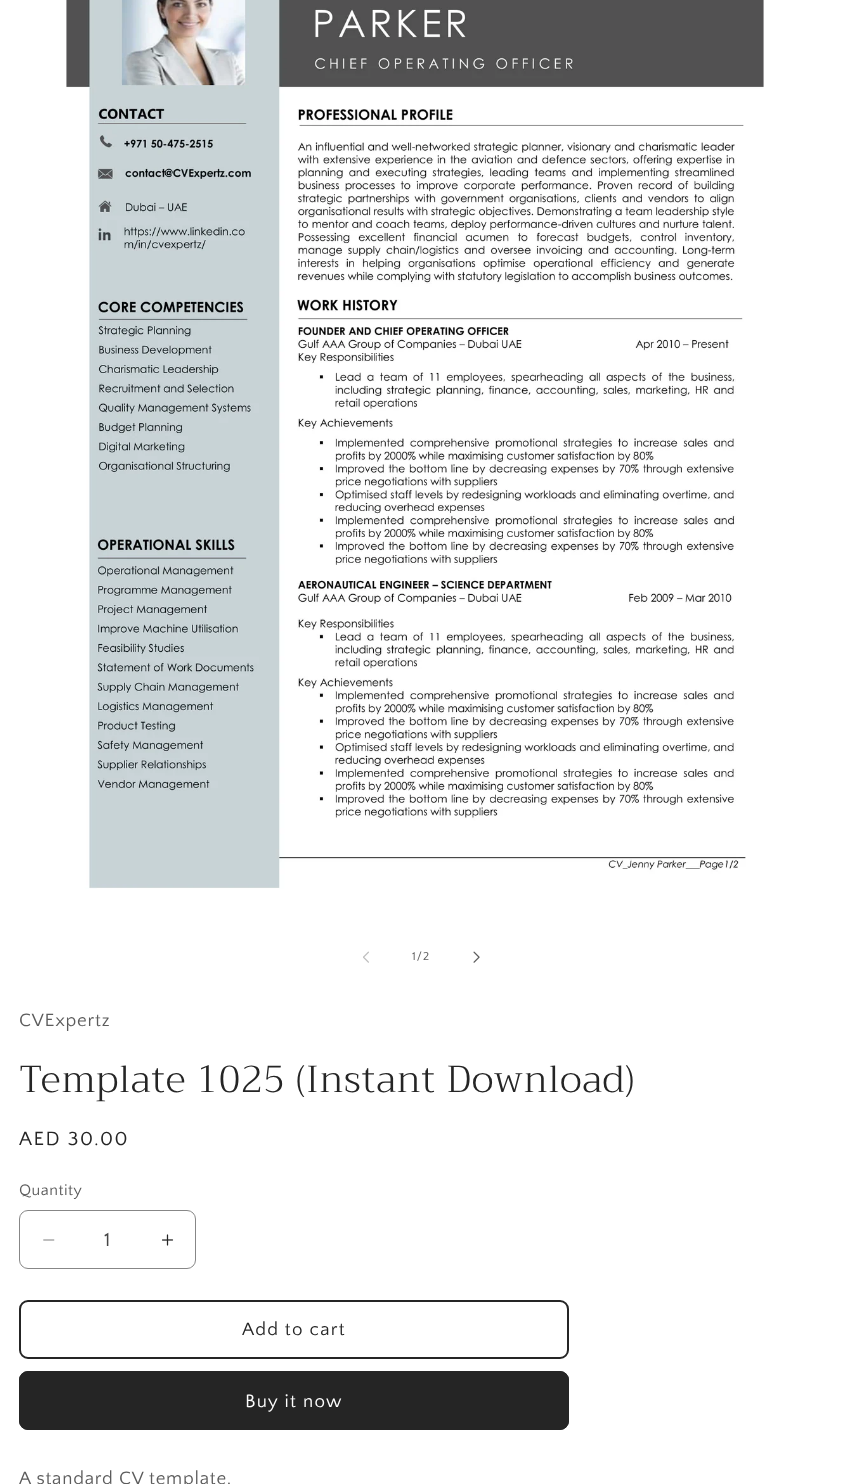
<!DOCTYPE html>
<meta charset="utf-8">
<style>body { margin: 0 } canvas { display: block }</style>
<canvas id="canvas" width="842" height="1484"></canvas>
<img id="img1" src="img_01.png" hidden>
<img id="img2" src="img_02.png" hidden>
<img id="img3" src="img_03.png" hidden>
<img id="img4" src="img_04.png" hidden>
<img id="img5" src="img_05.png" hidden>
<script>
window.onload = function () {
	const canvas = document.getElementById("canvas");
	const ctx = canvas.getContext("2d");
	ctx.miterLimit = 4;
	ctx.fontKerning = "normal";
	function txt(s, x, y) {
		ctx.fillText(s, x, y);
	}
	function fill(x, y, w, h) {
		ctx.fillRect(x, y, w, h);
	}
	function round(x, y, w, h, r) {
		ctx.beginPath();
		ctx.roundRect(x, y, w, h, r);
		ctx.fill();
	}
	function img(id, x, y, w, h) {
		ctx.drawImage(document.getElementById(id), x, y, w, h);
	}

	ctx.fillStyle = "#FFFFFF";
	fill(0, 0, 842, 1484);
	img("img1", 66, 0, 698, 889);
	img("img2", 363, 951, 6, 12);
	img("img3", 473, 951, 7, 12);
	img("img4", 43, 1239, 12, 2);
	img("img5", 162, 1234, 12, 12);
	ctx.beginPath();
	ctx.roundRect(19.5, 1210.5, 176, 58, 8.5);
	ctx.strokeStyle = "#878787";
	ctx.stroke();
	ctx.beginPath();
	ctx.roundRect(20, 1301, 548, 57, 8);
	ctx.strokeStyle = "#252525";
	ctx.lineWidth = 2;
	ctx.stroke();
	ctx.fillStyle = "#252525";
	round(19, 1371, 550, 59, 9);
	ctx.beginPath();
	ctx.roundRect(19.5, 1371.5, 549, 58, 8.5);
	ctx.lineWidth = 1;
	ctx.stroke();
	ctx.letterSpacing = "1px";
	ctx.font = "12px Quattrocento Sans";
	ctx.fillStyle = "#5C5C5C";
	txt("1/2", 412, 960);
	ctx.letterSpacing = "0.75px";
	ctx.font = "18.75px Quattrocento Sans";
	txt("CVExpertz", 19, 1026);
	ctx.font = "300 37.5px Trirong";
	ctx.fillStyle = "#252525";
	txt("Template 1025 (Instant Download)", 19, 1092);
	ctx.letterSpacing = "1.6px";
	ctx.font = "20px Quattrocento Sans";
	txt("AED 30.00", 19, 1145);
	ctx.letterSpacing = "0.5px";
	ctx.font = "16px Quattrocento Sans";
	ctx.fillStyle = "#5C5C5C";
	txt("Quantity", 19, 1195);
	ctx.letterSpacing = "0px";
	ctx.font = "20px Quattrocento Sans";
	ctx.fillStyle = "#464646";
	txt("1", 104, 1246);
	ctx.letterSpacing = "1.25px";
	ctx.font = "18.75px Quattrocento Sans";
	ctx.fillStyle = "#252525";
	txt("Add to cart", 242, 1335);
	ctx.fillStyle = "#FFFFFF";
	txt("Buy it now", 245, 1407);
	ctx.letterSpacing = "0.75px";
	ctx.fillStyle = "#5C5C5C";
	txt("A standard CV template.", 19, 1484);
};
</script>
